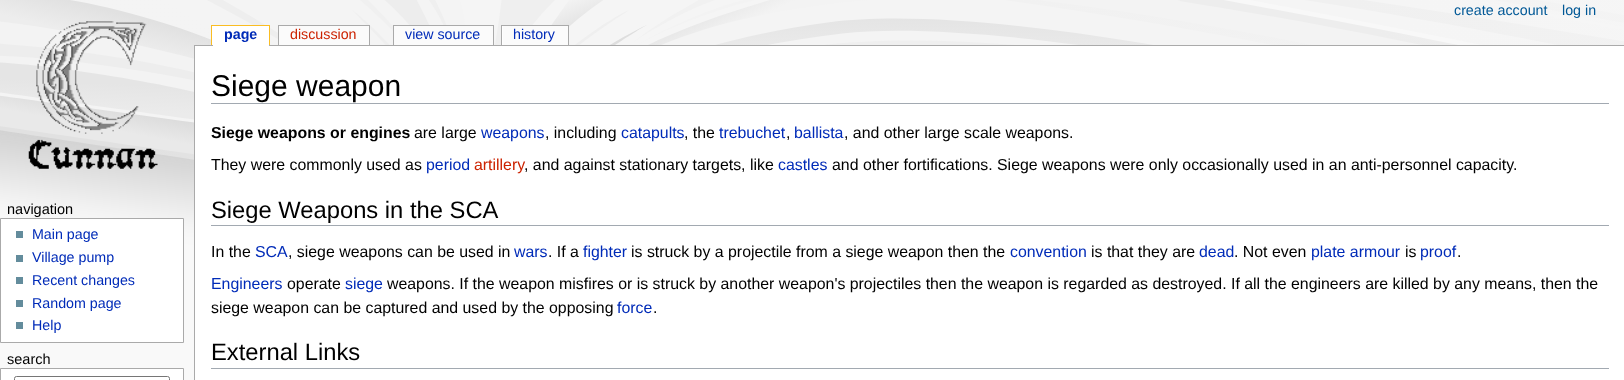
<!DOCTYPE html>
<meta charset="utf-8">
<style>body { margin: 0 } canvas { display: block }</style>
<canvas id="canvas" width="1624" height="380"></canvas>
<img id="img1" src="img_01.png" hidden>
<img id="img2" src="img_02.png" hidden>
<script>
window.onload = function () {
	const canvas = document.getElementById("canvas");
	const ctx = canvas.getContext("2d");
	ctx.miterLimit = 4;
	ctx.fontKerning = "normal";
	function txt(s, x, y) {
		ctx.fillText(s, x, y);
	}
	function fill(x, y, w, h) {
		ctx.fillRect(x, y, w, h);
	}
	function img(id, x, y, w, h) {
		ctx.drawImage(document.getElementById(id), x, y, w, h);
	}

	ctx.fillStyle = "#F9F9F9";
	fill(0, 0, 1624, 380);
	img("img1", 0, 0, 1624, 263);
	img("img2", 28, 21, 130, 148);
	ctx.fillStyle = "#FFFFFF";
	fill(212, 26, 1, 19);
	ctx.fillStyle = "#FABD23";
	fill(211, 25, 59, 1);
	fill(269, 25, 1, 20);
	fill(211, 25, 1, 20);
	ctx.fillStyle = "#AAAAAA";
	fill(194, 45, 1430, 1);
	ctx.fillStyle = "#FFFFFF";
	fill(213, 26, 56, 20);
	ctx.fillStyle = "#AAAAAA";
	fill(278, 25, 92, 1);
	fill(369, 25, 1, 20);
	fill(278, 25, 1, 20);
	ctx.fillStyle = "#FBFBFB";
	fill(279, 26, 90, 19);
	ctx.fillStyle = "#AAAAAA";
	fill(393, 25, 101, 1);
	fill(493, 25, 1, 20);
	fill(393, 25, 1, 20);
	ctx.fillStyle = "#FBFBFB";
	fill(394, 26, 99, 19);
	ctx.fillStyle = "#FFFFFF";
	fill(502, 26, 1, 19);
	ctx.fillStyle = "#AAAAAA";
	fill(501, 25, 68, 1);
	fill(568, 25, 1, 20);
	fill(501, 25, 1, 20);
	ctx.fillStyle = "#FBFBFB";
	fill(503, 26, 65, 19);
	ctx.fillStyle = "#FFFFFF";
	ctx.beginPath();
	ctx.rect(0.5, 218.5, 183, 124);
	ctx.fill();
	ctx.strokeStyle = "#AAAAAA";
	ctx.stroke();
	ctx.fillStyle = "#638C9C";
	fill(16, 231, 7, 7);
	fill(16, 255, 7, 7);
	fill(16, 277, 7, 7);
	fill(16, 300, 7, 7);
	fill(16, 322, 7, 7);
	ctx.fillStyle = "#FFFFFF";
	ctx.beginPath();
	ctx.rect(0.5, 368.5, 183, 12);
	ctx.fill();
	ctx.stroke();
	ctx.beginPath();
	ctx.roundRect(14.5, 376.5, 155, 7, 2);
	ctx.strokeStyle = "#767676";
	ctx.stroke();
	fill(195, 46, 1429, 334);
	ctx.fillStyle = "#AAAAAA";
	fill(194, 45, 1, 335);
	ctx.fillStyle = "#A2A9B1";
	fill(211, 103, 1398, 1);
	fill(211, 225, 1398, 1);
	fill(211, 368, 1398, 1);
	ctx.font = "14.25px Liberation Sans";
	ctx.fillStyle = "#005896";
	txt("create account", 1454, 15);
	txt("log in", 1562, 15);
	ctx.font = "bold 14.25px Liberation Sans";
	ctx.fillStyle = "#002BB8";
	txt("page", 224, 39);
	ctx.font = "14.25px Liberation Sans";
	ctx.fillStyle = "#CC2200";
	txt("discussion", 290, 39);
	ctx.fillStyle = "#002BB8";
	txt("view source", 405, 39);
	txt("history", 513, 39);
	ctx.font = "14.5px Liberation Sans";
	ctx.fillStyle = "#000000";
	txt("navigation", 7, 214);
	ctx.font = "14.25px Liberation Sans";
	ctx.fillStyle = "#002BB8";
	txt("Main page", 32, 239);
	txt("Village pump", 32, 262);
	txt("Recent changes", 32, 285);
	txt("Random page", 32, 308);
	txt("Help", 32, 330);
	ctx.font = "14.5px Liberation Sans";
	ctx.fillStyle = "#000000";
	txt("search", 7, 364);
	ctx.font = "30px Liberation Sans";
	txt("Siege weapon", 211, 96);
	ctx.font = "bold 15.88px Liberation Sans";
	txt("Siege weapons or engines", 211, 138);
	ctx.font = "15.88px Liberation Sans";
	txt("are large", 414, 138);
	ctx.fillStyle = "#002BB8";
	txt("weapons", 481, 138);
	ctx.fillStyle = "#000000";
	txt(", including", 545, 138);
	ctx.fillStyle = "#002BB8";
	txt("catapults", 621, 138);
	ctx.fillStyle = "#000000";
	txt(", the", 684, 138);
	ctx.fillStyle = "#002BB8";
	txt("trebuchet", 719, 138);
	ctx.fillStyle = "#000000";
	txt(",", 786, 138);
	ctx.fillStyle = "#002BB8";
	txt("ballista", 794, 138);
	ctx.fillStyle = "#000000";
	txt(", and other large scale weapons.", 844, 138);
	txt("They were commonly used as", 211, 170);
	ctx.fillStyle = "#002BB8";
	txt("period", 426, 170);
	ctx.fillStyle = "#CC2200";
	txt("artillery", 474, 170);
	ctx.fillStyle = "#000000";
	txt(", and against stationary targets, like", 524, 170);
	ctx.fillStyle = "#002BB8";
	txt("castles", 778, 170);
	ctx.fillStyle = "#000000";
	txt("and other fortifications. Siege weapons were only occasionally used in an anti-personnel capacity.", 832, 170);
	ctx.font = "23.75px Liberation Sans";
	txt("Siege Weapons in the SCA", 211, 218);
	ctx.font = "15.88px Liberation Sans";
	txt("In the", 211, 257);
	ctx.fillStyle = "#002BB8";
	txt("SCA", 255, 257);
	ctx.fillStyle = "#000000";
	txt(", siege weapons can be used in", 288, 257);
	ctx.fillStyle = "#002BB8";
	txt("wars", 514, 257);
	ctx.fillStyle = "#000000";
	txt(". If a", 548, 257);
	ctx.fillStyle = "#002BB8";
	txt("fighter", 583, 257);
	ctx.fillStyle = "#000000";
	txt("is struck by a projectile from a siege weapon then the", 631, 257);
	ctx.fillStyle = "#002BB8";
	txt("convention", 1010, 257);
	ctx.fillStyle = "#000000";
	txt("is that they are", 1091, 257);
	ctx.fillStyle = "#002BB8";
	txt("dead", 1199, 257);
	ctx.fillStyle = "#000000";
	txt(". Not even", 1234, 257);
	ctx.fillStyle = "#002BB8";
	txt("plate armour", 1311, 257);
	ctx.fillStyle = "#000000";
	txt("is", 1405, 257);
	ctx.fillStyle = "#002BB8";
	txt("proof", 1420, 257);
	ctx.fillStyle = "#000000";
	txt(".", 1457, 257);
	ctx.fillStyle = "#002BB8";
	txt("Engineers", 211, 289);
	ctx.fillStyle = "#000000";
	txt("operate", 287, 289);
	ctx.fillStyle = "#002BB8";
	txt("siege", 345, 289);
	ctx.fillStyle = "#000000";
	txt("weapons. If the weapon misfires or is struck by another weapon's projectiles then the weapon is regarded as destroyed. If all the engineers are killed by any means, then the", 387, 289);
	txt("siege weapon can be captured and used by the opposing", 211, 313);
	ctx.fillStyle = "#002BB8";
	txt("force", 617, 313);
	ctx.fillStyle = "#000000";
	txt(".", 653, 313);
	ctx.font = "23.75px Liberation Sans";
	txt("External Links", 211, 360);
};
</script>
